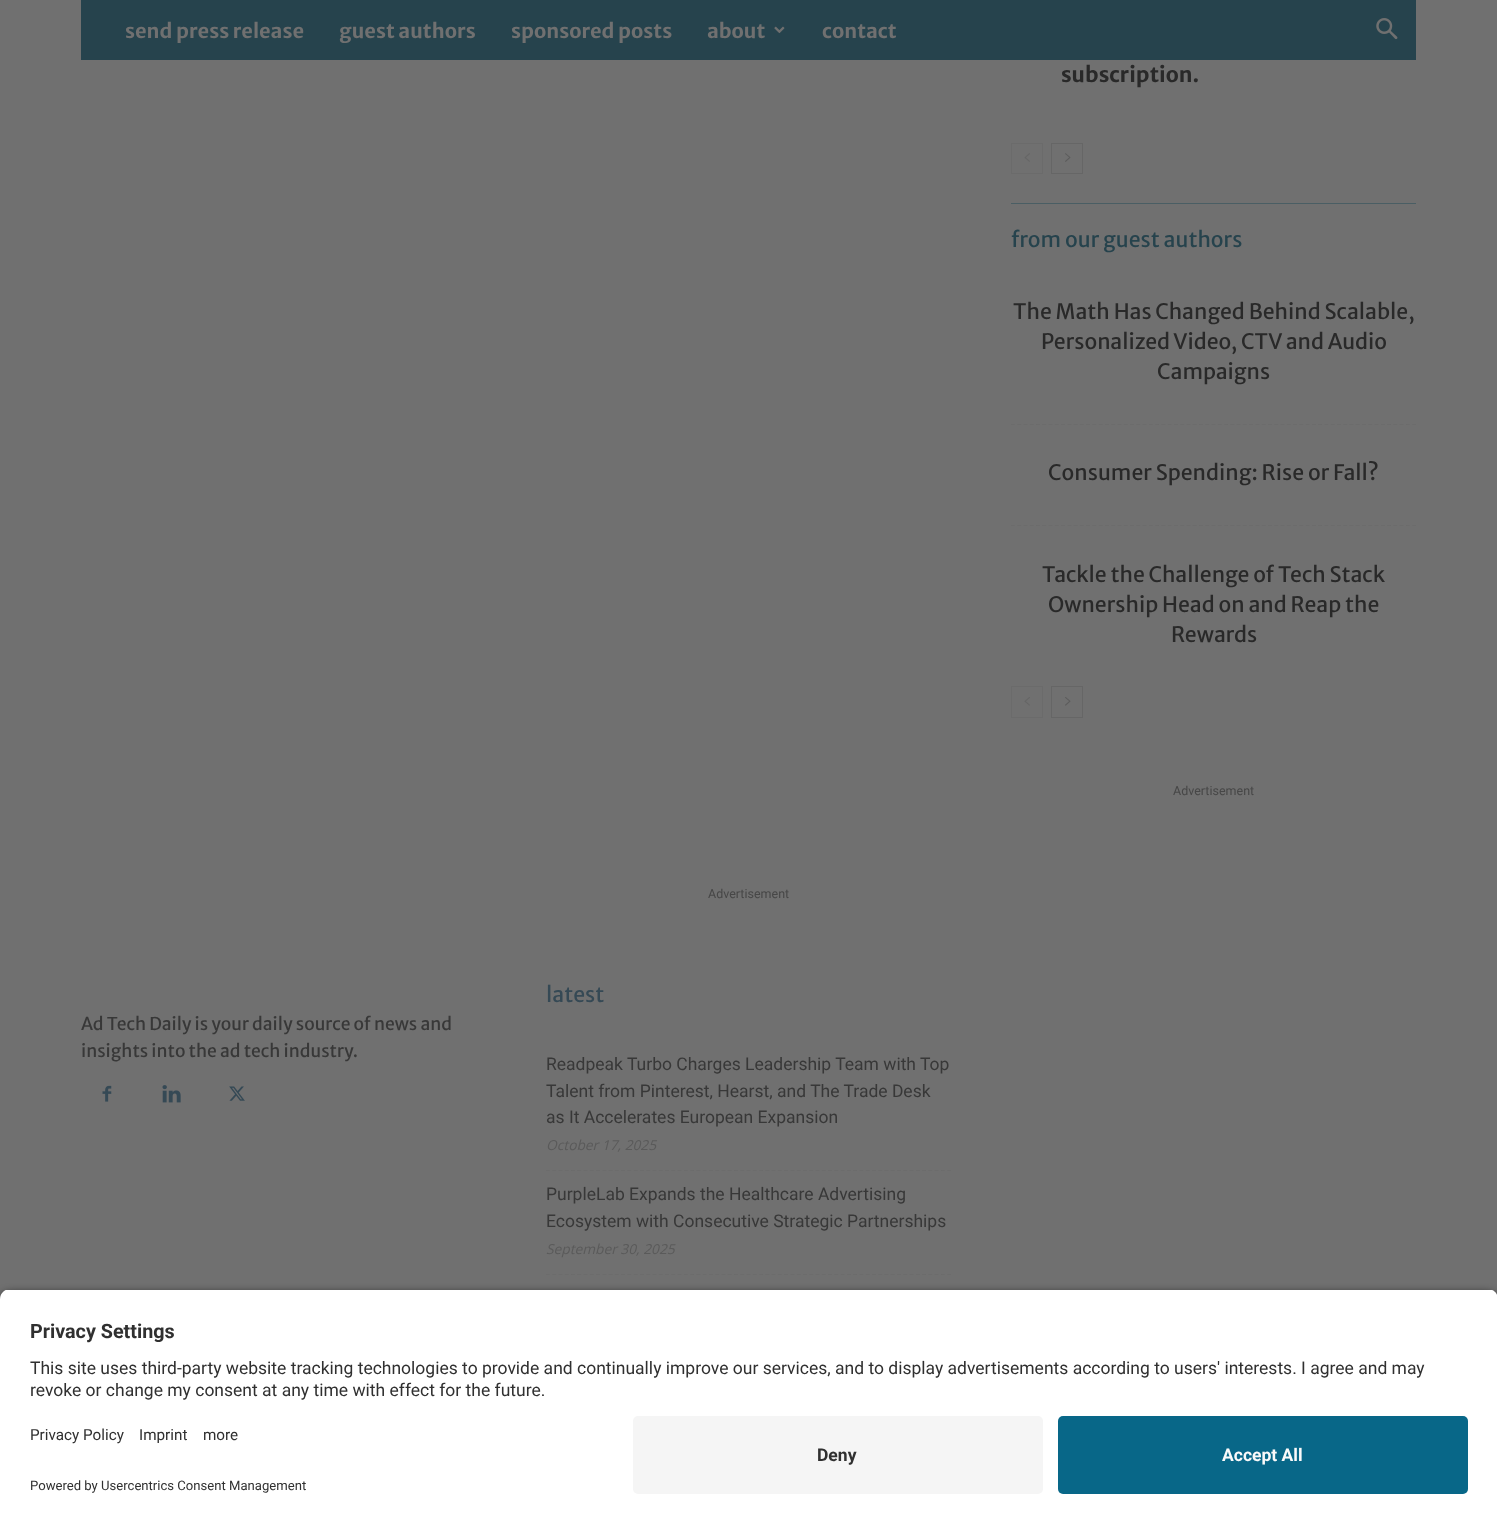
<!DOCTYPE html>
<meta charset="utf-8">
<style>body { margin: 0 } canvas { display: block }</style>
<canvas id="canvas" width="1497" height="1523"></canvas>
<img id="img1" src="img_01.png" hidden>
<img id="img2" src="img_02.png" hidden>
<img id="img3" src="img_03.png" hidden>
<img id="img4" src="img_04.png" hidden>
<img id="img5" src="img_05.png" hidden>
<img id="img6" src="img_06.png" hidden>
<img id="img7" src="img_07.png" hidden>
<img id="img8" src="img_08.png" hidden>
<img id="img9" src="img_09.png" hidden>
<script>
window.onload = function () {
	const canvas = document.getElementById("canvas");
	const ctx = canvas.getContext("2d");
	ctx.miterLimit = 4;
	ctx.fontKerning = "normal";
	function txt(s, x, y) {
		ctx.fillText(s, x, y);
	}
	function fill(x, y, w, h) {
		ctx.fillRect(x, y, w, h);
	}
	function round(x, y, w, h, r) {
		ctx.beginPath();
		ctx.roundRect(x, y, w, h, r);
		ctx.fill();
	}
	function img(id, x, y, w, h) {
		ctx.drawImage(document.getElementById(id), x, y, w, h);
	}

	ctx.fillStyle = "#707070";
	fill(0, 0, 1497, 1523);
	ctx.fillStyle = "#26434D";
	fill(81, 0, 1335, 60);
	img("img1", 774, 26, 11, 8);
	img("img2", 1376, 18, 22, 22);
	ctx.strokeStyle = "#6B6B6B";
	ctx.strokeRect(1011.5, 143.5, 31, 30);
	img("img3", 1024, 153, 6, 9);
	ctx.strokeStyle = "#666666";
	ctx.strokeRect(1051.5, 143.5, 31, 30);
	img("img4", 1065, 153, 6, 9);
	ctx.fillStyle = "#4A5E64";
	fill(1011, 203, 405, 1);
	ctx.beginPath();
	ctx.moveTo(1011, 424.5);
	ctx.lineTo(1416, 424.5);
	ctx.strokeStyle = "#6C6C6C";
	ctx.lineWidth = 1.2;
	ctx.setLineDash([3.75, 2.52]);
	ctx.stroke();
	ctx.beginPath();
	ctx.moveTo(1011, 525.5);
	ctx.lineTo(1416, 525.5);
	ctx.stroke();
	ctx.strokeStyle = "#6B6B6B";
	ctx.lineWidth = 1;
	ctx.setLineDash([]);
	ctx.strokeRect(1011.5, 686.5, 31, 31);
	img("img5", 1024, 697, 6, 9);
	ctx.strokeStyle = "#666666";
	ctx.strokeRect(1051.5, 686.5, 31, 31);
	img("img6", 1065, 697, 6, 9);
	img("img7", 102, 1085, 10, 17);
	img("img8", 162, 1085, 19, 18);
	img("img9", 229, 1086, 16, 15);
	ctx.beginPath();
	ctx.moveTo(546, 1170.5);
	ctx.lineTo(951, 1170.5);
	ctx.strokeStyle = "#6C6C6C";
	ctx.lineWidth = 1.2;
	ctx.setLineDash([3.75, 2.52]);
	ctx.stroke();
	ctx.beginPath();
	ctx.moveTo(546, 1274.5);
	ctx.lineTo(951, 1274.5);
	ctx.stroke();
	ctx.fillStyle = "rgba(0, 0, 0, 0.8)";
	ctx.filter = "blur(4.5px)";
	ctx.beginPath();
	ctx.roundRect(0, 1293, 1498, 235, 10);
	ctx.fill();
	ctx.filter = "none";
	ctx.save();
	ctx.beginPath();
	ctx.moveTo(10, 1289);
	ctx.lineTo(1488, 1289);
	ctx.bezierCurveTo(1493.5, 1289, 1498, 1293.5, 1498, 1299);
	ctx.lineTo(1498, 1406);
	ctx.lineTo(0, 1406);
	ctx.lineTo(0, 1299);
	ctx.bezierCurveTo(0, 1293.5, 4.5, 1289, 10, 1289);
	ctx.closePath();
	ctx.clip();
	ctx.fillStyle = "#FFFFFF";
	fill(0, 1290, 1497, 116);
	ctx.restore();
	ctx.fillStyle = "#FFFFFF";
	fill(0, 1406, 1497, 117);
	ctx.fillStyle = "#F5F5F5";
	round(633, 1416, 410, 78, 5);
	ctx.fillStyle = "#086788";
	round(1058, 1416, 410, 78, 5);
	ctx.font = "bold 20px Merriweather Sans";
	ctx.fillStyle = "#707070";
	txt("send press release", 125, 38);
	txt("guest authors", 339, 38);
	txt("sponsored posts", 511, 38);
	txt("about", 707, 38);
	txt("contact", 822, 38);
	ctx.font = "bold 21.25px Merriweather Sans";
	ctx.fillStyle = "#292929";
	txt("subscription.", 1061, 82);
	ctx.font = "21.25px Merriweather Sans";
	ctx.fillStyle = "#26434D";
	txt("from our guest authors", 1011, 247);
	ctx.fillStyle = "#292929";
	txt("The Math Has Changed Behind Scalable,", 1013, 319);
	txt("Personalized Video, CTV and Audio", 1041, 349);
	txt("Campaigns", 1157, 379);
	txt("Consumer Spending: Rise or Fall?", 1048, 480);
	txt("Tackle the Challenge of Tech Stack", 1042, 582);
	txt("Ownership Head on and Reap the", 1048, 612);
	txt("Rewards", 1171, 642);
	ctx.font = "12.5px Roboto";
	ctx.fillStyle = "#474747";
	txt("Advertisement", 1173, 795);
	txt("Advertisement", 708, 898);
	ctx.font = "17.5px Merriweather Sans";
	ctx.fillStyle = "#383838";
	txt("Ad Tech Daily is your daily source of news and", 81, 1030);
	txt("insights into the ad tech industry.", 81, 1057);
	ctx.font = "21.25px Merriweather Sans";
	ctx.fillStyle = "#354955";
	txt("latest", 546, 1002);
	ctx.font = "17.5px Roboto";
	ctx.fillStyle = "#383838";
	txt("Readpeak Turbo Charges Leadership Team with Top", 546, 1070);
	txt("Talent from Pinterest, Hearst, and The Trade Desk", 546, 1097);
	txt("as It Accelerates European Expansion", 546, 1123);
	ctx.font = "italic 13.75px Open Sans";
	ctx.fillStyle = "#5A5A5A";
	txt("October 17, 2025", 546, 1150);
	ctx.font = "17.5px Roboto";
	ctx.fillStyle = "#383838";
	txt("PurpleLab Expands the Healthcare Advertising", 546, 1200);
	txt("Ecosystem with Consecutive Strategic Partnerships", 546, 1227);
	ctx.font = "italic 13.75px Open Sans";
	ctx.fillStyle = "#5A5A5A";
	txt("September 30, 2025", 546, 1254);
	ctx.font = "bold 19.75px Roboto";
	ctx.fillStyle = "#303030";
	txt("Privacy Settings", 30, 1338);
	ctx.font = "17.5px Roboto";
	txt("This site uses third-party website tracking technologies to provide and continually improve our services, and to display advertisements according to users' interests. I agree and may", 30, 1374);
	txt("revoke or change my consent at any time with effect for the future.", 30, 1396);
	ctx.font = "15.25px Roboto";
	txt("Privacy Policy", 30, 1440);
	txt("Imprint", 139, 1440);
	txt("more", 203, 1440);
	ctx.font = "13.1px Roboto";
	txt("Powered by Usercentrics Consent Management", 30, 1490);
	ctx.font = "bold 17.5px Roboto";
	txt("Deny", 817, 1461);
	ctx.fillStyle = "#FAFAFA";
	txt("Accept All", 1222, 1461);
};
</script>
